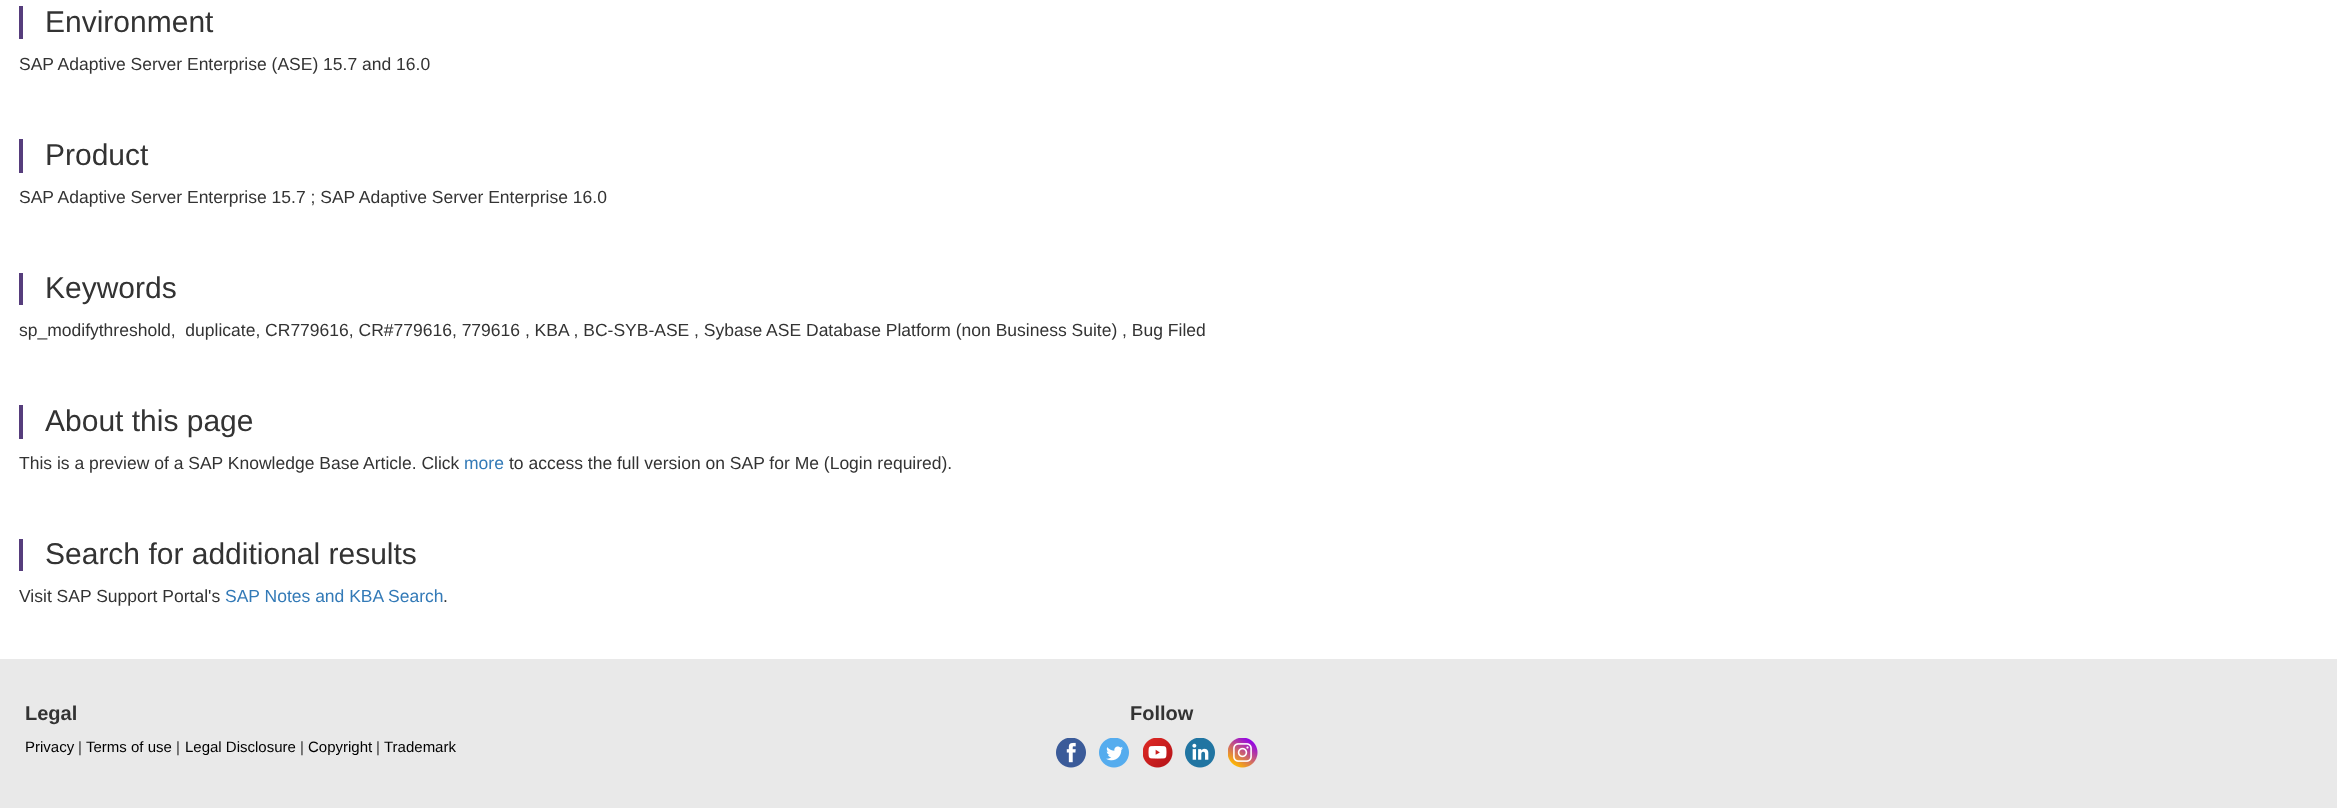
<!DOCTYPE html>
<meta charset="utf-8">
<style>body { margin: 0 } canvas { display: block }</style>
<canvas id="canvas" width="2337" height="808"></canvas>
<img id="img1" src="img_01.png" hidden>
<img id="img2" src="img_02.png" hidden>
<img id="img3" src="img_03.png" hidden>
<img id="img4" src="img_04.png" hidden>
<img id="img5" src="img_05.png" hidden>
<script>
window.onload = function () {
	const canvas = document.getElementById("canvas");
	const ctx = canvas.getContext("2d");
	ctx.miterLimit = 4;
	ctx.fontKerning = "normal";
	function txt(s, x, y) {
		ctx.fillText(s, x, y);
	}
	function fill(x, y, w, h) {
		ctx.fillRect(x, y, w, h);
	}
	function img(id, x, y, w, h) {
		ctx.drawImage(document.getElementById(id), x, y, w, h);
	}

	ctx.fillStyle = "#FFFFFF";
	fill(0, 0, 2337, 808);
	ctx.fillStyle = "#563D7C";
	fill(19, 6, 4, 33);
	fill(19, 139, 4, 34);
	fill(19, 273, 4, 32);
	fill(19, 405, 4, 34);
	fill(19, 539, 4, 32);
	ctx.fillStyle = "#E9E9E9";
	fill(0, 659, 2337, 149);
	img("img1", 1056, 738, 30, 30);
	img("img2", 1099, 738, 30, 30);
	img("img3", 1143, 738, 30, 30);
	img("img4", 1185, 738, 30, 30);
	img("img5", 1228, 738, 30, 30);
	ctx.font = "30px Liberation Sans";
	ctx.fillStyle = "#333333";
	txt("Environment", 45, 32);
	ctx.font = "17.5px Liberation Sans";
	txt("SAP Adaptive Server Enterprise (ASE) 15.7 and 16.0", 19, 70);
	ctx.font = "30px Liberation Sans";
	txt("Product", 45, 165);
	ctx.font = "17.5px Liberation Sans";
	txt("SAP Adaptive Server Enterprise 15.7 ; SAP Adaptive Server Enterprise 16.0", 19, 203);
	ctx.font = "30px Liberation Sans";
	txt("Keywords", 45, 298);
	ctx.font = "17.5px Liberation Sans";
	txt("sp_modifythreshold,  duplicate, CR779616, CR#779616, 779616 , KBA , BC-SYB-ASE , Sybase ASE Database Platform (non Business Suite) , Bug Filed", 19, 336);
	ctx.font = "30px Liberation Sans";
	txt("About this page", 45, 431);
	ctx.font = "17.5px Liberation Sans";
	txt("This is a preview of a SAP Knowledge Base Article. Click", 19, 469);
	ctx.fillStyle = "#337AB7";
	txt("more", 464, 469);
	ctx.fillStyle = "#333333";
	txt("to access the full version on SAP for Me (Login required).", 509, 469);
	ctx.font = "30px Liberation Sans";
	txt("Search for additional results", 45, 564);
	ctx.font = "17.5px Liberation Sans";
	txt("Visit SAP Support Portal's", 19, 602);
	ctx.fillStyle = "#337AB7";
	txt("SAP Notes and KBA Search", 225, 602);
	ctx.fillStyle = "#333333";
	txt(".", 443, 602);
	ctx.font = "bold 20px Liberation Sans";
	txt("Legal", 25, 720);
	ctx.font = "15px Liberation Sans";
	ctx.fillStyle = "#000000";
	txt("Privacy", 25, 752);
	ctx.fillStyle = "#333333";
	txt("|", 78, 752);
	ctx.fillStyle = "#000000";
	txt("Terms of use", 86, 752);
	ctx.fillStyle = "#333333";
	txt("|", 176, 752);
	ctx.fillStyle = "#000000";
	txt("Legal Disclosure", 185, 752);
	ctx.fillStyle = "#333333";
	txt("|", 300, 752);
	ctx.fillStyle = "#000000";
	txt("Copyright", 308, 752);
	ctx.fillStyle = "#333333";
	txt("|", 376, 752);
	ctx.fillStyle = "#000000";
	txt("Trademark", 384, 752);
	ctx.font = "bold 20px Liberation Sans";
	ctx.fillStyle = "#333333";
	txt("Follow", 1130, 720);
};
</script>
